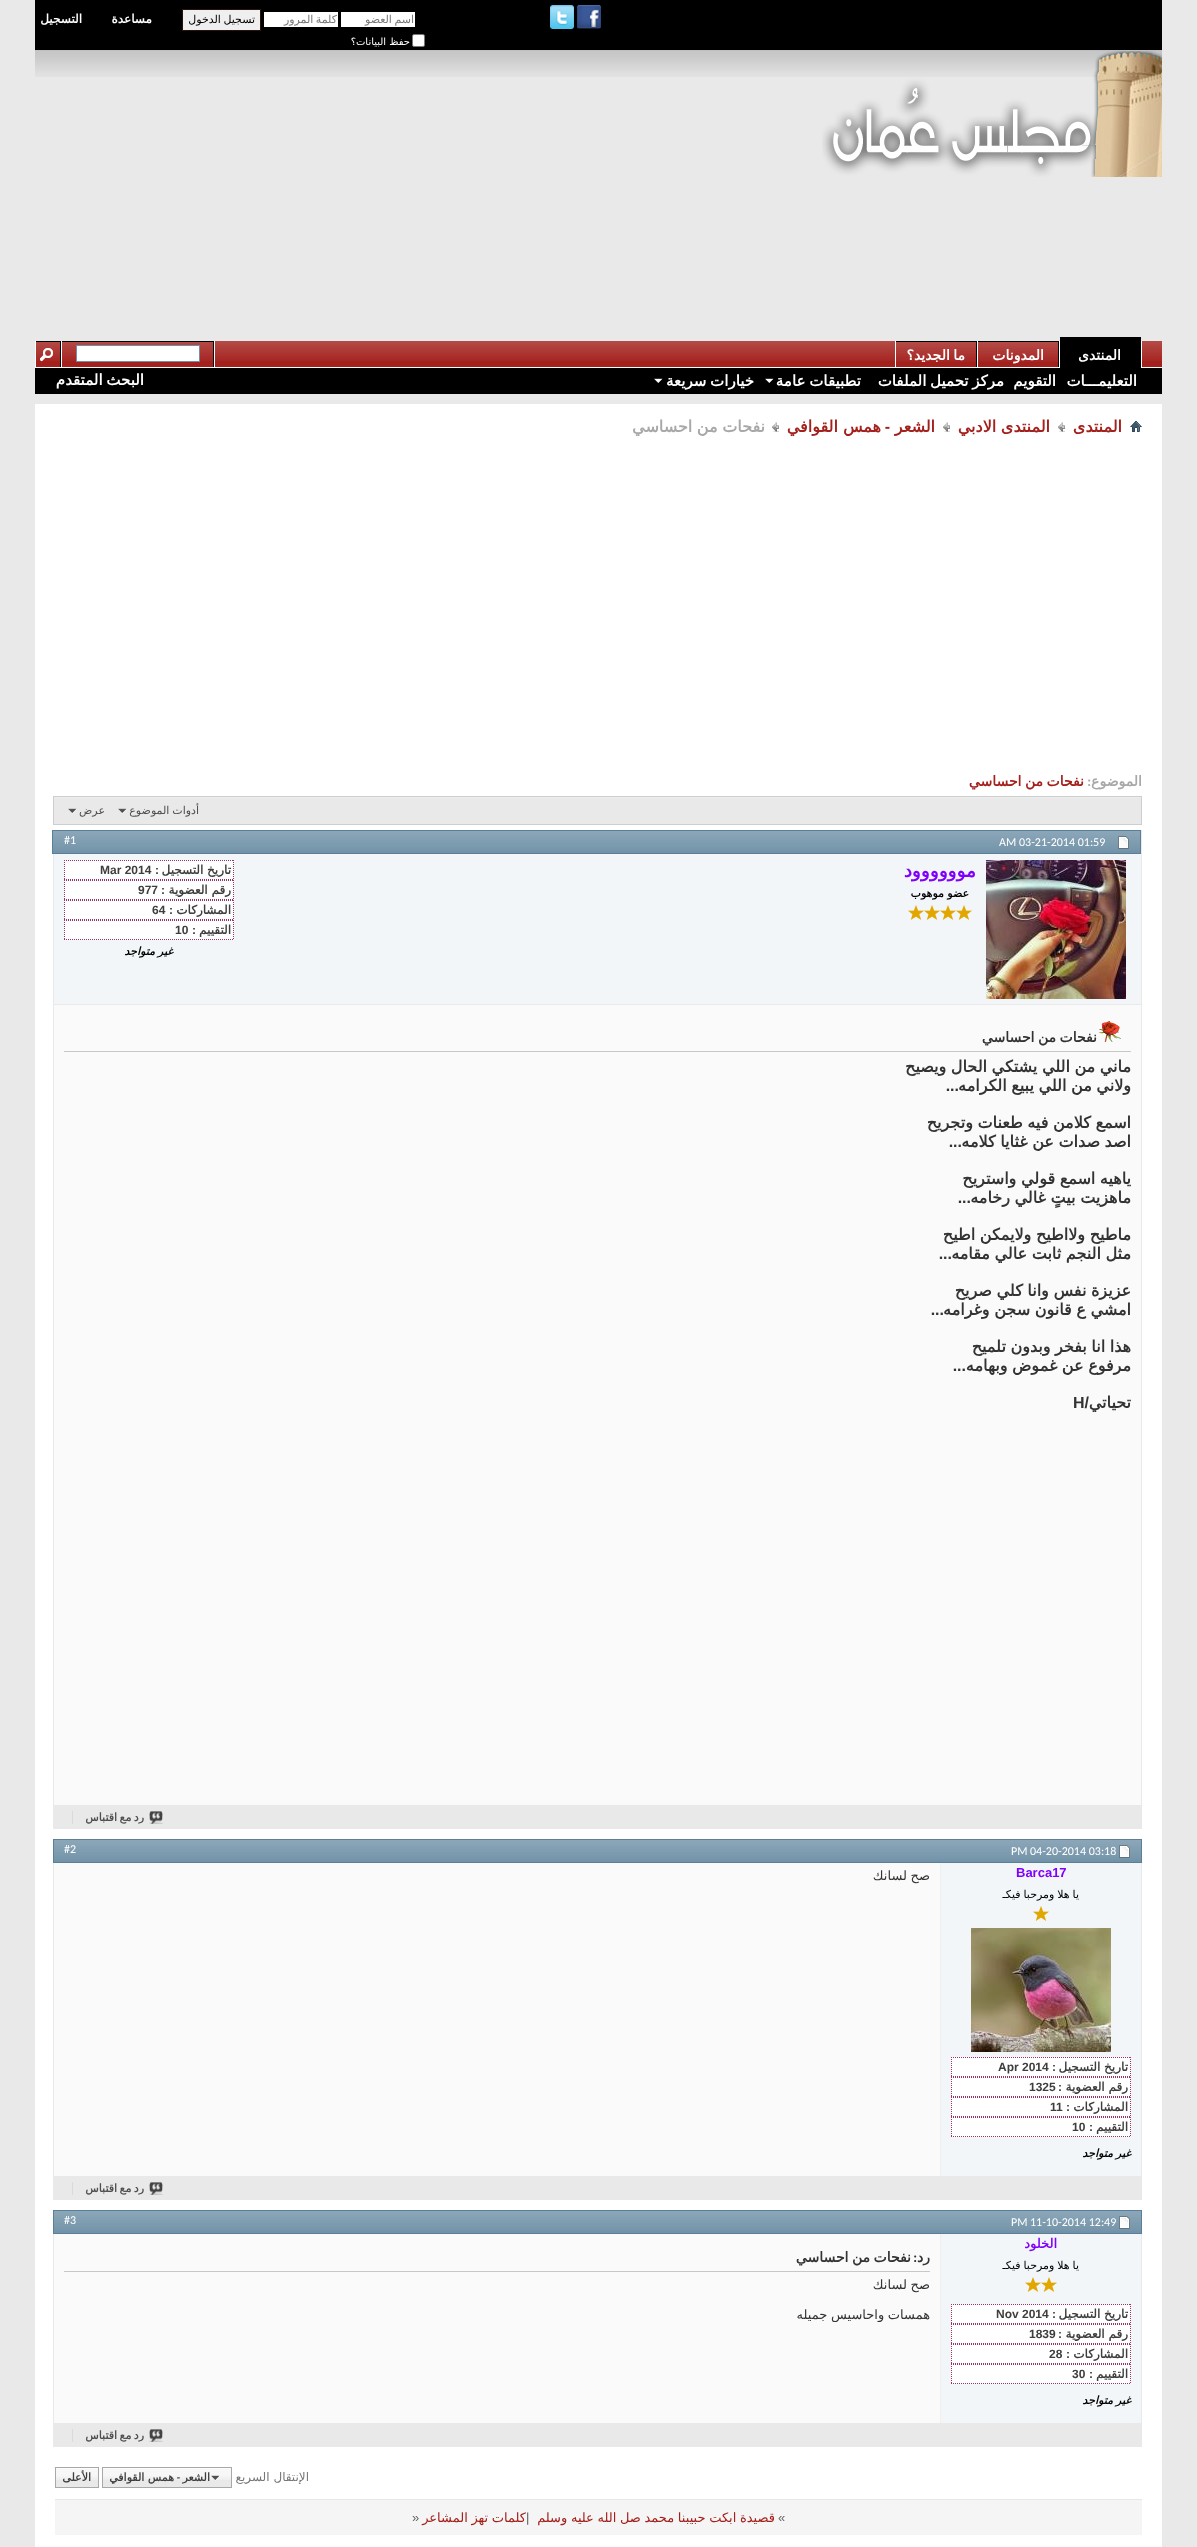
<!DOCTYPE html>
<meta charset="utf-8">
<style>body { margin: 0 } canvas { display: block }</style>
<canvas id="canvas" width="1197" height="2547"></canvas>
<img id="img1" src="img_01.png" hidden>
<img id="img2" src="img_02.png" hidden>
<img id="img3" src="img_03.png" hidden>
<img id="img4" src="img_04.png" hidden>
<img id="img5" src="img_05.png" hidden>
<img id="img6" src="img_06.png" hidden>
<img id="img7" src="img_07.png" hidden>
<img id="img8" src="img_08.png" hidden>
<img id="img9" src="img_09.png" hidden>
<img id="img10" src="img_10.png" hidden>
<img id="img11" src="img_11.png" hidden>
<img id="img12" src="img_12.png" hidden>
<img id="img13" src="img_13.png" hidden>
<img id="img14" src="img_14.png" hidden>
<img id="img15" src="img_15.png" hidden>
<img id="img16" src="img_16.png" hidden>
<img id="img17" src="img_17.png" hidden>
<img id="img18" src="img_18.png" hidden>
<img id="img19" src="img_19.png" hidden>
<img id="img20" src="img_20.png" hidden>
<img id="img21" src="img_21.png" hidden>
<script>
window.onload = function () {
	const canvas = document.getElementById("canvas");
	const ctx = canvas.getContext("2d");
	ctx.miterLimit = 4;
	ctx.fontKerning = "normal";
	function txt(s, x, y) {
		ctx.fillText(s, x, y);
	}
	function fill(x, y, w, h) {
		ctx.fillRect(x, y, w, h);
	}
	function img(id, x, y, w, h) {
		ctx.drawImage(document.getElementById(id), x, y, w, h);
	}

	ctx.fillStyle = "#E9E9E9";
	fill(0, 0, 1197, 2547);
	ctx.fillStyle = "#000000";
	fill(35, 0, 1127, 50);
	ctx.fillStyle = "#C0C0C0";
	fill(35, 50, 1127, 1);
	img("img1", 577, 5, 24, 24);
	img("img2", 550, 5, 24, 24);
	ctx.fillStyle = "#FFFFFF";
	fill(341, 12, 74, 15);
	fill(264, 12, 74, 15);
	ctx.fillStyle = "#EFEFEF";
	ctx.beginPath();
	ctx.rect(182.5, 9.5, 78, 21);
	ctx.fill();
	ctx.strokeStyle = "#281108";
	ctx.stroke();
	ctx.fillStyle = "#FFFFFF";
	ctx.beginPath();
	ctx.roundRect(412.5, 34.5, 12, 12, 1.5);
	ctx.fill();
	ctx.strokeStyle = "#767676";
	ctx.stroke();
	img("img3", 35, 51, 1127, 26);
	img("img4", 822, 51, 340, 126);
	ctx.fillStyle = "#000000";
	fill(35, 368, 1127, 26);
	ctx.fillStyle = "#A3201C";
	fill(36, 341, 1126, 26);
	img("img5", 36, 341, 1126, 20);
	ctx.fillStyle = "#FFFFFF";
	fill(1141, 341, 1, 26);
	fill(1059, 341, 1, 26);
	fill(977, 341, 1, 27);
	ctx.fillStyle = "#000000";
	fill(978, 341, 81, 1);
	fill(1058, 341, 1, 27);
	ctx.fillStyle = "#FFFFFF";
	fill(895, 341, 1, 27);
	ctx.fillStyle = "#000000";
	fill(896, 341, 81, 1);
	fill(976, 341, 1, 27);
	ctx.fillStyle = "#FFFFFF";
	fill(35, 367, 1127, 1);
	ctx.fillStyle = "#000000";
	fill(1060, 337, 81, 31);
	ctx.fillStyle = "#A3201C";
	fill(978, 342, 80, 19);
	img("img6", 978, 342, 80, 20);
	fill(896, 342, 80, 19);
	img("img6", 896, 342, 80, 20);
	img("img7", 765, 378, 9, 5);
	img("img7", 654, 378, 9, 5);
	ctx.fillStyle = "#FFFFFF";
	fill(214, 341, 1, 26);
	ctx.fillStyle = "#000000";
	fill(62, 341, 152, 1);
	fill(213, 341, 1, 26);
	ctx.fillStyle = "#FFFFFF";
	ctx.beginPath();
	ctx.rect(76.5, 345.5, 123, 16);
	ctx.fill();
	ctx.strokeStyle = "#6B91AB";
	ctx.stroke();
	fill(61, 341, 1, 26);
	fill(35, 341, 1, 26);
	ctx.fillStyle = "#000000";
	fill(36, 341, 25, 1);
	fill(60, 341, 1, 26);
	img("img8", 40, 348, 13, 14);
	ctx.fillStyle = "#FFFFFF";
	fill(35, 404, 1127, 2143);
	img("img9", 1130, 421, 12, 11);
	img("img10", 1058, 422, 7, 10);
	img("img10", 943, 422, 7, 10);
	img("img10", 772, 422, 7, 10);
	ctx.fillStyle = "#E9E9E9";
	fill(54, 798, 1087, 26);
	ctx.fillStyle = "#EDEDED";
	fill(53, 797, 1089, 1);
	ctx.strokeStyle = "#CECECE";
	ctx.strokeRect(53.5, 796.5, 1088, 28);
	img("img11", 118, 808, 9, 6);
	img("img11", 68, 808, 9, 6);
	ctx.strokeStyle = "#E9E9E9";
	ctx.strokeRect(53.5, 830.5, 1088, 998);
	ctx.fillStyle = "#7192A8";
	fill(53, 831, 1087, 22);
	img("img12", 53, 831, 1087, 20);
	ctx.strokeStyle = "#5A7F97";
	ctx.strokeRect(52.5, 830.5, 1088, 23);
	img("img13", 1118, 836, 11, 13);
	ctx.fillStyle = "#F2F6F8";
	fill(54, 854, 1087, 150);
	ctx.fillStyle = "#E9E9E9";
	fill(54, 1004, 1087, 1);
	img("img14", 986, 860, 140, 139);
	img("img15", 956, 905, 16, 15);
	img("img15", 940, 905, 16, 15);
	img("img15", 924, 905, 16, 15);
	img("img15", 908, 905, 16, 15);
	ctx.fillStyle = "#FFFFFF";
	fill(64, 860, 170, 80);
	ctx.beginPath();
	ctx.moveTo(64, 860.5);
	ctx.lineTo(234, 860.5);
	ctx.strokeStyle = "#993366";
	ctx.setLineDash([1, 1]);
	ctx.stroke();
	ctx.beginPath();
	ctx.moveTo(233.5, 860);
	ctx.lineTo(233.5, 880);
	ctx.stroke();
	ctx.beginPath();
	ctx.moveTo(64, 879.5);
	ctx.lineTo(234, 879.5);
	ctx.stroke();
	ctx.beginPath();
	ctx.moveTo(64.5, 860);
	ctx.lineTo(64.5, 880);
	ctx.stroke();
	ctx.beginPath();
	ctx.moveTo(64, 880.5);
	ctx.lineTo(234, 880.5);
	ctx.stroke();
	ctx.beginPath();
	ctx.moveTo(233.5, 880);
	ctx.lineTo(233.5, 900);
	ctx.stroke();
	ctx.beginPath();
	ctx.moveTo(64, 899.5);
	ctx.lineTo(234, 899.5);
	ctx.stroke();
	ctx.beginPath();
	ctx.moveTo(64.5, 880);
	ctx.lineTo(64.5, 900);
	ctx.stroke();
	ctx.beginPath();
	ctx.moveTo(64, 900.5);
	ctx.lineTo(234, 900.5);
	ctx.stroke();
	ctx.beginPath();
	ctx.moveTo(233.5, 900);
	ctx.lineTo(233.5, 920);
	ctx.stroke();
	ctx.beginPath();
	ctx.moveTo(64, 919.5);
	ctx.lineTo(234, 919.5);
	ctx.stroke();
	ctx.beginPath();
	ctx.moveTo(64.5, 900);
	ctx.lineTo(64.5, 920);
	ctx.stroke();
	ctx.beginPath();
	ctx.moveTo(64, 920.5);
	ctx.lineTo(234, 920.5);
	ctx.stroke();
	ctx.beginPath();
	ctx.moveTo(233.5, 920);
	ctx.lineTo(233.5, 940);
	ctx.stroke();
	ctx.beginPath();
	ctx.moveTo(64, 939.5);
	ctx.lineTo(234, 939.5);
	ctx.stroke();
	ctx.beginPath();
	ctx.moveTo(64.5, 920);
	ctx.lineTo(64.5, 940);
	ctx.stroke();
	ctx.fillStyle = "#FAFAFA";
	fill(54, 1005, 1087, 800);
	ctx.fillStyle = "#C8C8C8";
	fill(64, 1051, 1067, 1);
	img("img16", 1099, 1021, 22, 21);
	ctx.fillStyle = "#E9E9E9";
	fill(54, 1805, 1087, 23);
	img("img17", 149, 1811, 14, 13);
	ctx.fillStyle = "#DADADA";
	fill(72, 1811, 1, 13);
	ctx.strokeStyle = "#E9E9E9";
	ctx.setLineDash([]);
	ctx.strokeRect(53.5, 1839.5, 1088, 360);
	ctx.fillStyle = "#7192A8";
	fill(54, 1840, 1087, 22);
	img("img12", 54, 1840, 1087, 20);
	ctx.strokeStyle = "#5A7F97";
	ctx.strokeRect(53.5, 1839.5, 1088, 23);
	img("img13", 1119, 1845, 11, 13);
	ctx.fillStyle = "#F2F6F8";
	fill(941, 1863, 200, 313);
	img("img15", 1033, 1906, 16, 15);
	img("img18", 971, 1928, 140, 124);
	ctx.fillStyle = "#FFFFFF";
	fill(951, 2057, 180, 80);
	ctx.beginPath();
	ctx.moveTo(951, 2057.5);
	ctx.lineTo(1131, 2057.5);
	ctx.strokeStyle = "#993366";
	ctx.setLineDash([1, 1]);
	ctx.stroke();
	ctx.beginPath();
	ctx.moveTo(1130.5, 2057);
	ctx.lineTo(1130.5, 2077);
	ctx.stroke();
	ctx.beginPath();
	ctx.moveTo(951, 2076.5);
	ctx.lineTo(1131, 2076.5);
	ctx.stroke();
	ctx.beginPath();
	ctx.moveTo(951.5, 2057);
	ctx.lineTo(951.5, 2077);
	ctx.stroke();
	ctx.beginPath();
	ctx.moveTo(951, 2077.5);
	ctx.lineTo(1131, 2077.5);
	ctx.stroke();
	ctx.beginPath();
	ctx.moveTo(1130.5, 2077);
	ctx.lineTo(1130.5, 2097);
	ctx.stroke();
	ctx.beginPath();
	ctx.moveTo(951, 2096.5);
	ctx.lineTo(1131, 2096.5);
	ctx.stroke();
	ctx.beginPath();
	ctx.moveTo(951.5, 2077);
	ctx.lineTo(951.5, 2097);
	ctx.stroke();
	ctx.beginPath();
	ctx.moveTo(951, 2097.5);
	ctx.lineTo(1131, 2097.5);
	ctx.stroke();
	ctx.beginPath();
	ctx.moveTo(1130.5, 2097);
	ctx.lineTo(1130.5, 2117);
	ctx.stroke();
	ctx.beginPath();
	ctx.moveTo(951, 2116.5);
	ctx.lineTo(1131, 2116.5);
	ctx.stroke();
	ctx.beginPath();
	ctx.moveTo(951.5, 2097);
	ctx.lineTo(951.5, 2117);
	ctx.stroke();
	ctx.beginPath();
	ctx.moveTo(951, 2117.5);
	ctx.lineTo(1131, 2117.5);
	ctx.stroke();
	ctx.beginPath();
	ctx.moveTo(1130.5, 2117);
	ctx.lineTo(1130.5, 2137);
	ctx.stroke();
	ctx.beginPath();
	ctx.moveTo(951, 2136.5);
	ctx.lineTo(1131, 2136.5);
	ctx.stroke();
	ctx.beginPath();
	ctx.moveTo(951.5, 2117);
	ctx.lineTo(951.5, 2137);
	ctx.stroke();
	ctx.fillStyle = "#FAFAFA";
	fill(54, 1863, 886, 313);
	ctx.fillStyle = "#EFEFEF";
	fill(940, 1863, 1, 313);
	ctx.fillStyle = "#E9E9E9";
	fill(54, 2176, 1087, 23);
	img("img17", 149, 2182, 14, 13);
	ctx.fillStyle = "#DADADA";
	fill(72, 2182, 1, 13);
	ctx.strokeStyle = "#E9E9E9";
	ctx.setLineDash([]);
	ctx.strokeRect(53.5, 2210.5, 1088, 236);
	ctx.fillStyle = "#7192A8";
	fill(54, 2211, 1087, 22);
	img("img12", 54, 2211, 1087, 20);
	ctx.strokeStyle = "#5A7F97";
	ctx.strokeRect(53.5, 2210.5, 1088, 23);
	img("img13", 1119, 2216, 11, 13);
	ctx.fillStyle = "#F2F6F8";
	fill(941, 2234, 200, 189);
	img("img15", 1041, 2277, 16, 15);
	img("img15", 1025, 2277, 16, 15);
	ctx.fillStyle = "#FFFFFF";
	fill(951, 2304, 180, 80);
	ctx.beginPath();
	ctx.moveTo(951, 2304.5);
	ctx.lineTo(1131, 2304.5);
	ctx.strokeStyle = "#993366";
	ctx.setLineDash([1, 1]);
	ctx.stroke();
	ctx.beginPath();
	ctx.moveTo(1130.5, 2304);
	ctx.lineTo(1130.5, 2324);
	ctx.stroke();
	ctx.beginPath();
	ctx.moveTo(951, 2323.5);
	ctx.lineTo(1131, 2323.5);
	ctx.stroke();
	ctx.beginPath();
	ctx.moveTo(951.5, 2304);
	ctx.lineTo(951.5, 2324);
	ctx.stroke();
	ctx.beginPath();
	ctx.moveTo(951, 2324.5);
	ctx.lineTo(1131, 2324.5);
	ctx.stroke();
	ctx.beginPath();
	ctx.moveTo(1130.5, 2324);
	ctx.lineTo(1130.5, 2344);
	ctx.stroke();
	ctx.beginPath();
	ctx.moveTo(951, 2343.5);
	ctx.lineTo(1131, 2343.5);
	ctx.stroke();
	ctx.beginPath();
	ctx.moveTo(951.5, 2324);
	ctx.lineTo(951.5, 2344);
	ctx.stroke();
	ctx.beginPath();
	ctx.moveTo(951, 2344.5);
	ctx.lineTo(1131, 2344.5);
	ctx.stroke();
	ctx.beginPath();
	ctx.moveTo(1130.5, 2344);
	ctx.lineTo(1130.5, 2364);
	ctx.stroke();
	ctx.beginPath();
	ctx.moveTo(951, 2363.5);
	ctx.lineTo(1131, 2363.5);
	ctx.stroke();
	ctx.beginPath();
	ctx.moveTo(951.5, 2344);
	ctx.lineTo(951.5, 2364);
	ctx.stroke();
	ctx.beginPath();
	ctx.moveTo(951, 2364.5);
	ctx.lineTo(1131, 2364.5);
	ctx.stroke();
	ctx.beginPath();
	ctx.moveTo(1130.5, 2364);
	ctx.lineTo(1130.5, 2384);
	ctx.stroke();
	ctx.beginPath();
	ctx.moveTo(951, 2383.5);
	ctx.lineTo(1131, 2383.5);
	ctx.stroke();
	ctx.beginPath();
	ctx.moveTo(951.5, 2364);
	ctx.lineTo(951.5, 2384);
	ctx.stroke();
	ctx.fillStyle = "#FAFAFA";
	fill(54, 2234, 886, 189);
	ctx.fillStyle = "#EFEFEF";
	fill(940, 2234, 1, 189);
	ctx.fillStyle = "#C8C8C8";
	fill(64, 2271, 866, 1);
	ctx.fillStyle = "#E9E9E9";
	fill(54, 2423, 1087, 23);
	img("img17", 149, 2429, 14, 13);
	ctx.fillStyle = "#DADADA";
	fill(72, 2429, 1, 13);
	ctx.fillStyle = "#E9E9E9";
	fill(103, 2468, 128, 19);
	img("img19", 103, 2468, 128, 12);
	fill(56, 2468, 42, 19);
	img("img20", 56, 2468, 42, 12);
	ctx.strokeStyle = "#A8A8A8";
	ctx.setLineDash([]);
	ctx.strokeRect(102.5, 2467.5, 129, 20);
	img("img21", 211, 2475, 9, 6);
	ctx.strokeRect(55.5, 2467.5, 43, 20);
	ctx.fillStyle = "#F5F5F5";
	fill(55, 2500, 1087, 35);
	ctx.fillStyle = "#E7E7E7";
	fill(55, 2499, 1087, 1);
	ctx.wordSpacing = "-1px";
	ctx.direction = "rtl";
	ctx.font = "11px DejaVu Sans";
	ctx.fillStyle = "#777777";
	txt("اسم العضو", 414, 23);
	txt("كلمة المرور", 337, 23);
	ctx.fillStyle = "#000000";
	txt("تسجيل الدخول", 255, 23);
	ctx.wordSpacing = "0px";
	ctx.font = "10px DejaVu Sans";
	ctx.fillStyle = "#FFFFFF";
	txt("حفظ البيانات؟", 410, 45);
	ctx.font = "bold 12px DejaVu Sans";
	txt("مساعدة", 152, 23);
	txt("التسجيل", 82, 23);
	ctx.font = "bold 14px DejaVu Sans";
	txt("المنتدى", 1121, 360);
	txt("المدونات", 1044, 360);
	ctx.wordSpacing = "-1px";
	txt("ما الجديد؟", 965, 360);
	ctx.wordSpacing = "0px";
	ctx.font = "bold 15px DejaVu Sans";
	txt("التعليمـــات", 1137, 386);
	txt("التقويم", 1056, 386);
	ctx.wordSpacing = "-1px";
	txt("مركز تحميل الملفات", 1004, 386);
	txt("تطبيقات عامة", 861, 386);
	txt("خيارات سريعة", 754, 386);
	txt("البحث المتقدم", 144, 385);
	ctx.wordSpacing = "0px";
	ctx.font = "bold 16px DejaVu Sans";
	ctx.fillStyle = "#A3201C";
	txt("المنتدى", 1122, 432);
	ctx.wordSpacing = "-0.5px";
	txt("المنتدى الادبي", 1050, 432);
	ctx.wordSpacing = "0px";
	txt("الشعر", 935, 432);
	ctx.font = "bold 16px Liberation Sans";
	txt("-", 890, 432);
	ctx.font = "bold 16px DejaVu Sans";
	txt("همس القوافي", 881, 432);
	ctx.wordSpacing = "-0.5px";
	ctx.fillStyle = "#A8A8A8";
	txt("نفحات من احساسي", 765, 432);
	ctx.wordSpacing = "0px";
	ctx.font = "bold 14px DejaVu Sans";
	txt("الموضوع", 1142, 786);
	ctx.font = "bold 14px Carlito";
	txt(":", 1091, 786);
	ctx.wordSpacing = "-1px";
	ctx.font = "bold 14px DejaVu Sans";
	ctx.fillStyle = "#A3201C";
	txt("نفحات من احساسي", 1084, 786);
	ctx.wordSpacing = "-0.5px";
	ctx.font = "11px DejaVu Sans";
	ctx.fillStyle = "#4E4E4E";
	txt("أدوات الموضوع", 199, 814);
	ctx.wordSpacing = "0px";
	txt("عرض", 105, 814);
	ctx.direction = "ltr";
	ctx.font = "12px Carlito";
	ctx.fillStyle = "#FFFFFF";
	txt("03-21-2014 01:59", 1019, 846);
	txt("AM", 999, 846);
	txt("#1", 64, 844);
	ctx.direction = "rtl";
	ctx.font = "bold 18.5px DejaVu Sans";
	ctx.fillStyle = "#7F00FD";
	txt("موووووود", 976, 877);
	ctx.font = "bold 11px DejaVu Sans";
	ctx.fillStyle = "#000000";
	txt("عضو", 969, 897);
	txt("موهوب", 944, 897);
	ctx.font = "bold 12px DejaVu Sans";
	ctx.fillStyle = "#3E3E3E";
	txt("تاريخ التسجيل", 231, 874);
	ctx.font = "bold 12px Liberation Sans";
	txt(":", 159, 874);
	ctx.direction = "ltr";
	txt("Mar 2014", 100, 874);
	ctx.direction = "rtl";
	ctx.font = "bold 12px DejaVu Sans";
	txt("رقم العضوية", 231, 894);
	ctx.font = "bold 12px Liberation Sans";
	txt(":", 165, 894);
	ctx.direction = "ltr";
	txt("977", 138, 894);
	ctx.direction = "rtl";
	ctx.font = "bold 12px DejaVu Sans";
	txt("المشاركات", 231, 914);
	ctx.font = "bold 12px Liberation Sans";
	txt(":", 173, 914);
	ctx.direction = "ltr";
	txt("64", 152, 914);
	ctx.direction = "rtl";
	ctx.font = "bold 12px DejaVu Sans";
	txt("التقييم", 231, 934);
	ctx.font = "bold 12px Liberation Sans";
	txt(":", 196, 934);
	ctx.direction = "ltr";
	txt("10", 175, 934);
	ctx.wordSpacing = "-0.5px";
	ctx.direction = "rtl";
	ctx.font = "italic bold 11px DejaVu Sans";
	ctx.fillStyle = "#000000";
	txt("غير متواجد", 173, 955);
	ctx.wordSpacing = "-1px";
	ctx.font = "bold 14px DejaVu Sans";
	ctx.fillStyle = "#333333";
	txt("نفحات من احساسي", 1097, 1042);
	ctx.wordSpacing = "-0.5px";
	ctx.font = "bold 16px DejaVu Sans";
	txt("ماني من اللي يشتكي الحال ويصيح", 1131, 1072);
	txt("ولاني من اللي يبيع الكرامه", 1131, 1091);
	ctx.wordSpacing = "0px";
	ctx.font = "bold 16px Liberation Sans";
	txt("...", 959, 1091);
	ctx.wordSpacing = "-0.5px";
	ctx.font = "bold 16px DejaVu Sans";
	txt("اسمع كلامن فيه طعنات وتجريح", 1131, 1128);
	txt("اصد صدات عن غثايا كلامه", 1131, 1147);
	ctx.wordSpacing = "0px";
	ctx.font = "bold 16px Liberation Sans";
	txt("...", 962, 1147);
	ctx.wordSpacing = "-0.5px";
	ctx.font = "bold 16px DejaVu Sans";
	txt("ياهيه اسمع قولي واستريح", 1131, 1184);
	txt("ماهزيت بيتٍ غالي رخامه", 1131, 1203);
	ctx.wordSpacing = "0px";
	ctx.font = "bold 16px Liberation Sans";
	txt("...", 971, 1203);
	ctx.wordSpacing = "-0.5px";
	ctx.font = "bold 16px DejaVu Sans";
	txt("ماطيح ولااطيح ولايمكن اطيح", 1131, 1240);
	txt("مثل النجم ثابت عالي مقامه", 1131, 1259);
	ctx.wordSpacing = "0px";
	ctx.font = "bold 16px Liberation Sans";
	txt("...", 952, 1259);
	ctx.wordSpacing = "-0.5px";
	ctx.font = "bold 16px DejaVu Sans";
	txt("عزيزة نفس وانا كلي صريح", 1131, 1296);
	txt("امشي ع قانون سجن وغرامه", 1131, 1315);
	ctx.wordSpacing = "0px";
	ctx.font = "bold 16px Liberation Sans";
	txt("...", 944, 1315);
	ctx.wordSpacing = "-0.5px";
	ctx.font = "bold 16px DejaVu Sans";
	txt("هذا انا بفخر وبدون تلميح", 1131, 1352);
	txt("مرفوع عن غموض وبهامه", 1131, 1371);
	ctx.wordSpacing = "0px";
	ctx.font = "bold 16px Liberation Sans";
	txt("...", 966, 1371);
	ctx.font = "bold 16px DejaVu Sans";
	txt("تحياتي", 1131, 1408);
	ctx.font = "bold 16px Liberation Sans";
	txt("/", 1089, 1408);
	ctx.direction = "ltr";
	txt("H", 1073, 1408);
	ctx.wordSpacing = "-1px";
	ctx.direction = "rtl";
	ctx.font = "bold 11px DejaVu Sans";
	ctx.fillStyle = "#4E4E4E";
	txt("رد مع اقتباس", 144, 1821);
	ctx.wordSpacing = "0px";
	ctx.direction = "ltr";
	ctx.font = "12px Carlito";
	ctx.fillStyle = "#FFFFFF";
	txt("04-20-2014 03:18", 1030, 1855);
	txt("PM", 1011, 1855);
	txt("#2", 64, 1853);
	ctx.font = "bold 13px Liberation Sans";
	ctx.fillStyle = "#7F00FD";
	txt("Barca17", 1016, 1877);
	ctx.wordSpacing = "-0.5px";
	ctx.direction = "rtl";
	ctx.font = "11px DejaVu Sans";
	ctx.fillStyle = "#000000";
	txt("يا هلا ومرحبا فيكـ", 1079, 1898);
	ctx.wordSpacing = "0px";
	ctx.font = "bold 12px DejaVu Sans";
	ctx.fillStyle = "#3E3E3E";
	txt("تاريخ التسجيل", 1128, 2071);
	ctx.font = "bold 12px Liberation Sans";
	txt(":", 1056, 2071);
	ctx.direction = "ltr";
	txt("Apr 2014", 998, 2071);
	ctx.direction = "rtl";
	ctx.font = "bold 12px DejaVu Sans";
	txt("رقم العضوية", 1128, 2091);
	ctx.font = "bold 12px Liberation Sans";
	txt(":", 1062, 2091);
	ctx.direction = "ltr";
	txt("1325", 1029, 2091);
	ctx.direction = "rtl";
	ctx.font = "bold 12px DejaVu Sans";
	txt("المشاركات", 1128, 2111);
	ctx.font = "bold 12px Liberation Sans";
	txt(":", 1070, 2111);
	ctx.direction = "ltr";
	txt("11", 1050, 2111);
	ctx.direction = "rtl";
	ctx.font = "bold 12px DejaVu Sans";
	txt("التقييم", 1128, 2131);
	ctx.font = "bold 12px Liberation Sans";
	txt(":", 1093, 2131);
	ctx.direction = "ltr";
	txt("10", 1072, 2131);
	ctx.wordSpacing = "-0.5px";
	ctx.direction = "rtl";
	ctx.font = "italic bold 11px DejaVu Sans";
	ctx.fillStyle = "#000000";
	txt("غير متواجد", 1131, 2157);
	ctx.font = "13px DejaVu Sans";
	ctx.fillStyle = "#333333";
	txt("صح لسانك", 930, 1880);
	ctx.wordSpacing = "-1px";
	ctx.font = "bold 11px DejaVu Sans";
	ctx.fillStyle = "#4E4E4E";
	txt("رد مع اقتباس", 144, 2192);
	ctx.wordSpacing = "0px";
	ctx.direction = "ltr";
	ctx.font = "12px Carlito";
	ctx.fillStyle = "#FFFFFF";
	txt("11-10-2014 12:49", 1030, 2226);
	txt("PM", 1011, 2226);
	txt("#3", 64, 2224);
	ctx.direction = "rtl";
	ctx.font = "bold 13px DejaVu Sans";
	ctx.fillStyle = "#7F00FD";
	txt("الخلود", 1057, 2248);
	ctx.wordSpacing = "-0.5px";
	ctx.font = "11px DejaVu Sans";
	ctx.fillStyle = "#000000";
	txt("يا هلا ومرحبا فيكـ", 1079, 2269);
	ctx.wordSpacing = "0px";
	ctx.font = "bold 12px DejaVu Sans";
	ctx.fillStyle = "#3E3E3E";
	txt("تاريخ التسجيل", 1128, 2318);
	ctx.font = "bold 12px Liberation Sans";
	txt(":", 1056, 2318);
	ctx.direction = "ltr";
	txt("Nov 2014", 996, 2318);
	ctx.direction = "rtl";
	ctx.font = "bold 12px DejaVu Sans";
	txt("رقم العضوية", 1128, 2338);
	ctx.font = "bold 12px Liberation Sans";
	txt(":", 1062, 2338);
	ctx.direction = "ltr";
	txt("1839", 1029, 2338);
	ctx.direction = "rtl";
	ctx.font = "bold 12px DejaVu Sans";
	txt("المشاركات", 1128, 2358);
	ctx.font = "bold 12px Liberation Sans";
	txt(":", 1070, 2358);
	ctx.direction = "ltr";
	txt("28", 1049, 2358);
	ctx.direction = "rtl";
	ctx.font = "bold 12px DejaVu Sans";
	txt("التقييم", 1128, 2378);
	ctx.font = "bold 12px Liberation Sans";
	txt(":", 1093, 2378);
	ctx.direction = "ltr";
	txt("30", 1072, 2378);
	ctx.wordSpacing = "-0.5px";
	ctx.direction = "rtl";
	ctx.font = "italic bold 11px DejaVu Sans";
	ctx.fillStyle = "#000000";
	txt("غير متواجد", 1131, 2404);
	ctx.wordSpacing = "0px";
	ctx.font = "bold 14px DejaVu Sans";
	ctx.fillStyle = "#333333";
	txt("رد", 930, 2262);
	ctx.font = "bold 14px Carlito";
	txt(":", 917, 2262);
	ctx.wordSpacing = "-1px";
	ctx.font = "bold 14px DejaVu Sans";
	txt("نفحات من احساسي", 911, 2262);
	ctx.wordSpacing = "-0.5px";
	ctx.font = "13px DejaVu Sans";
	txt("صح لسانك", 930, 2289);
	ctx.save();
	ctx.beginPath();
	ctx.rect(64, 2277, 866, 45);
	ctx.clip();
	txt("همسات واحاسيس جميله", 930, 2319);
	ctx.restore();
	ctx.wordSpacing = "-1px";
	ctx.font = "bold 11px DejaVu Sans";
	ctx.fillStyle = "#4E4E4E";
	txt("رد مع اقتباس", 144, 2439);
	ctx.wordSpacing = "0px";
	ctx.font = "12px DejaVu Sans";
	ctx.fillStyle = "#777777";
	txt("الإنتقال السريع", 309, 2481);
	ctx.font = "bold 11px DejaVu Sans";
	ctx.fillStyle = "#3E3E3E";
	txt("الشعر", 210, 2481);
	ctx.font = "bold 11px Carlito";
	txt("-", 180, 2481);
	ctx.font = "bold 11px DejaVu Sans";
	txt("همس القوافي", 174, 2481);
	txt("الأعلى", 91, 2481);
	ctx.direction = "ltr";
	ctx.font = "13px Liberation Sans";
	ctx.fillStyle = "#5D5D5D";
	txt("«", 778, 2522);
	ctx.wordSpacing = "-0.5px";
	ctx.direction = "rtl";
	ctx.font = "13px DejaVu Sans";
	ctx.fillStyle = "#A3201C";
	txt("قصيدة ابكت حبيبنا محمد صل الله عليه وسلم", 775, 2522);
	ctx.wordSpacing = "0px";
	ctx.direction = "ltr";
	ctx.font = "13px Liberation Sans";
	ctx.fillStyle = "#5D5D5D";
	txt("|", 526, 2522);
	ctx.wordSpacing = "-0.5px";
	ctx.direction = "rtl";
	ctx.font = "13px DejaVu Sans";
	ctx.fillStyle = "#A3201C";
	txt("كلمات تهز المشاعر", 526, 2522);
	ctx.wordSpacing = "0px";
	ctx.direction = "ltr";
	ctx.font = "13px Liberation Sans";
	ctx.fillStyle = "#5D5D5D";
	txt("»", 412, 2522);
};
</script>
